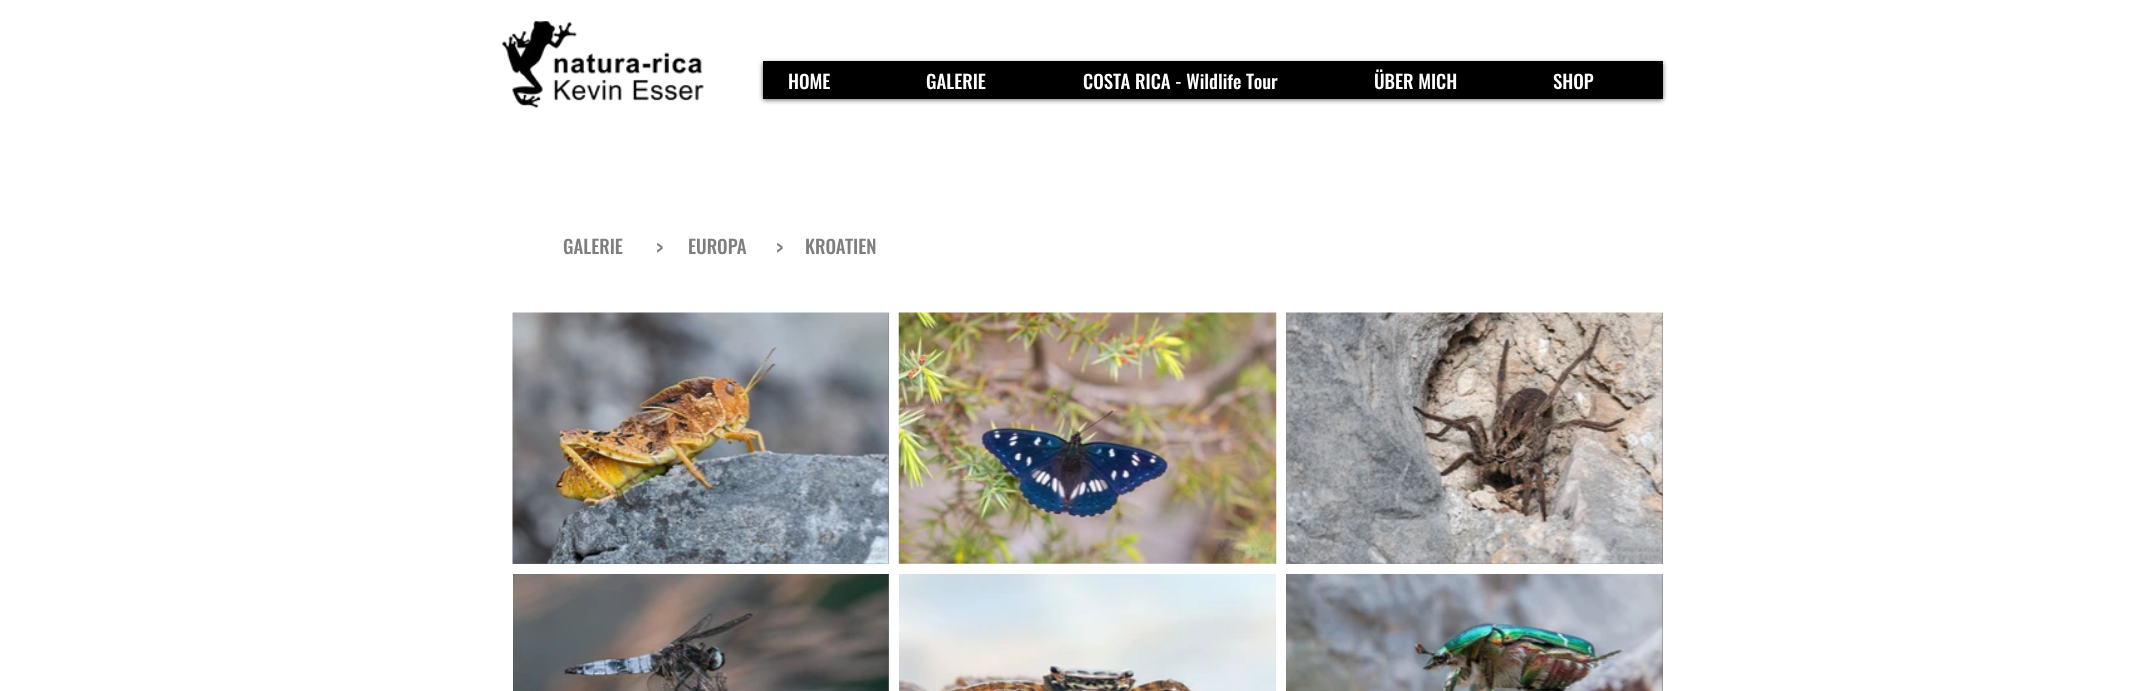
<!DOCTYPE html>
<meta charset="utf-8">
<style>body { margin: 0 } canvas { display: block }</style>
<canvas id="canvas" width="2155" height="691"></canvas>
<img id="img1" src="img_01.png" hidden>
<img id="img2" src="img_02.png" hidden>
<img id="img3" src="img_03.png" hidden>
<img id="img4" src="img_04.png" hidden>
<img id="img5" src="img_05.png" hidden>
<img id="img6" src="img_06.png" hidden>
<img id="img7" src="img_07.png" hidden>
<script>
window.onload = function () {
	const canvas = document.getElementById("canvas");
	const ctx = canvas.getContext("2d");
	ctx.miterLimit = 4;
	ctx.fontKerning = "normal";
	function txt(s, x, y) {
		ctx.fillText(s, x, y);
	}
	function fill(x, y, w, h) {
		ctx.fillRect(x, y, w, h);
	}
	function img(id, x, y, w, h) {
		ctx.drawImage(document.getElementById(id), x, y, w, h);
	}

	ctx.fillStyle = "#FFFFFF";
	fill(0, 0, 2155, 691);
	img("img1", 502, 21, 202, 87);
	ctx.fillStyle = "rgba(0, 0, 0, 0.6)";
	ctx.filter = "blur(2.5px)";
	ctx.beginPath();
	ctx.rect(763, 63, 900, 37);
	ctx.fill();
	ctx.filter = "none";
	ctx.fillStyle = "#000000";
	fill(763, 61, 900, 38);
	ctx.fillStyle = "#7F7E7E";
	fill(513, 313, 376, 251);
	img("img2", 512, 312, 377, 252);
	img("img3", 898, 312, 379, 252);
	fill(1286, 313, 377, 251);
	img("img4", 1286, 312, 377, 252);
	fill(888, 574, 1, 117);
	img("img5", 513, 574, 376, 117);
	img("img6", 899, 574, 377, 117);
	fill(1661, 574, 2, 117);
	img("img7", 1286, 574, 377, 117);
	ctx.font = "500 18.75px Oswald";
	ctx.fillStyle = "#FFFFFF";
	txt("HOME", 788, 89);
	txt("GALERIE", 926, 89);
	txt("COSTA RICA - Wildlife Tour", 1083, 89);
	txt("ÜBER MICH", 1374, 89);
	txt("SHOP", 1553, 89);
	ctx.fillStyle = "#7F7E7E";
	txt("GALERIE", 563, 254);
	txt(">", 656, 254);
	txt("EUROPA", 688, 254);
	txt(">", 776, 254);
	txt("KROATIEN", 805, 254);
};
</script>
